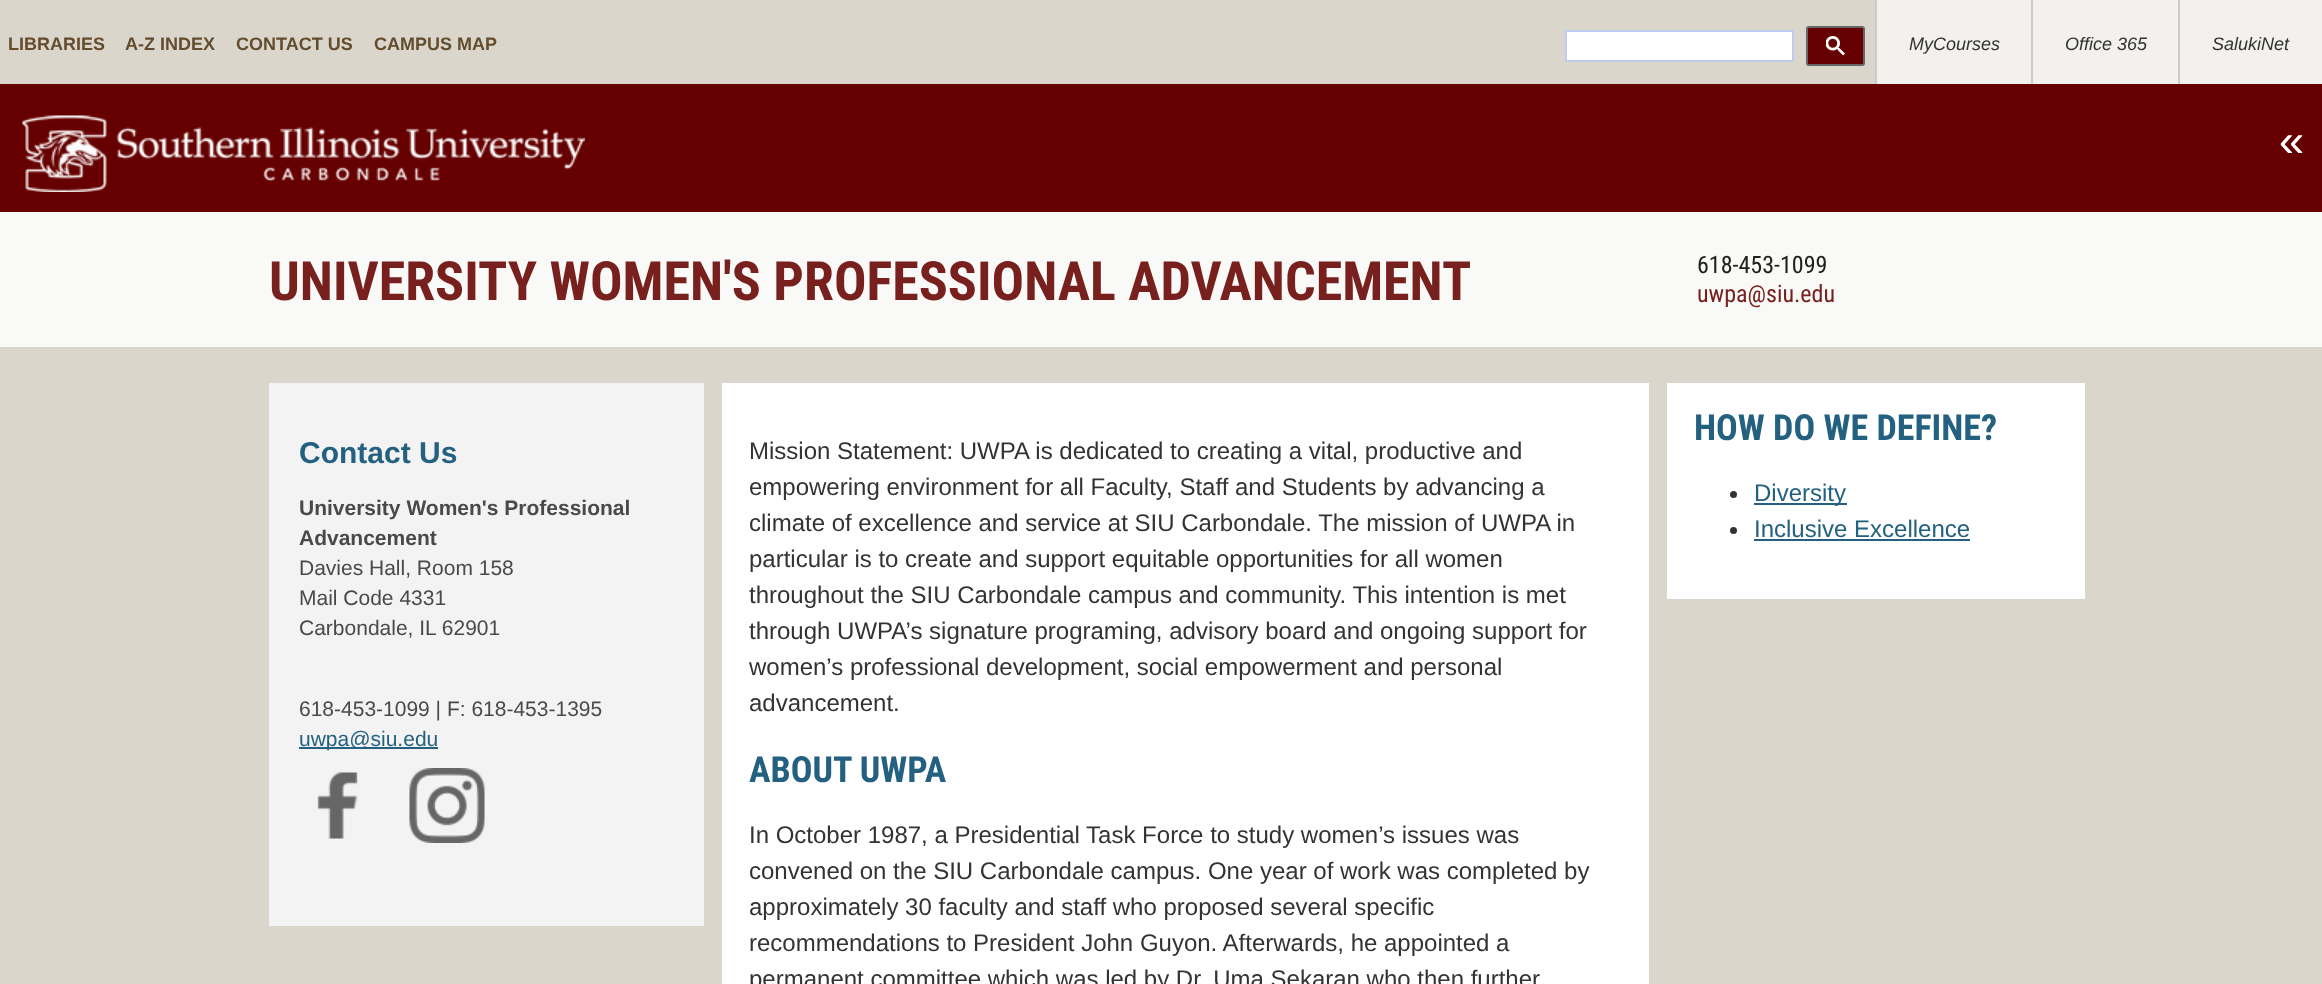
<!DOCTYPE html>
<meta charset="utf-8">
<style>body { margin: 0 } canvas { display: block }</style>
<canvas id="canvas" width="2322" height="984"></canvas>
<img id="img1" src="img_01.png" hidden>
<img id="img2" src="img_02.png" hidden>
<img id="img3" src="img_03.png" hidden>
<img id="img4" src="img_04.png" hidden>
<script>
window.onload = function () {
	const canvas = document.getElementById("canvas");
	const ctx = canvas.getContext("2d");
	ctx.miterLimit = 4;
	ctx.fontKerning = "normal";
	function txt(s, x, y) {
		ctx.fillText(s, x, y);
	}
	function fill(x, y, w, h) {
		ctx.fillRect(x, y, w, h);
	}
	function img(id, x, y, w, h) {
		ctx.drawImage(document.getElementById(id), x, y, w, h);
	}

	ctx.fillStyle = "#DAD6CB";
	fill(0, 0, 2322, 984);
	ctx.fillStyle = "#FFFFFF";
	ctx.beginPath();
	ctx.rect(1566, 31, 227, 30);
	ctx.fill();
	ctx.strokeStyle = "#BCCDF0";
	ctx.lineWidth = 2;
	ctx.stroke();
	ctx.fillStyle = "#660000";
	ctx.beginPath();
	ctx.roundRect(1807, 27, 57, 38, 2);
	ctx.fill();
	ctx.strokeStyle = "#666666";
	ctx.stroke();
	img("img1", 1826, 36, 19, 20);
	ctx.fillStyle = "#F2F1ED";
	fill(1877, 0, 154, 84);
	ctx.fillStyle = "#CCCCCC";
	fill(1875, 0, 2, 87);
	ctx.fillStyle = "#F2F1ED";
	fill(2033, 0, 145, 84);
	ctx.fillStyle = "#CCCCCC";
	fill(2031, 0, 2, 87);
	ctx.fillStyle = "#F2F1ED";
	fill(2180, 0, 142, 84);
	ctx.fillStyle = "#CCCCCC";
	fill(2178, 0, 2, 87);
	ctx.fillStyle = "#660000";
	fill(0, 84, 2322, 128);
	img("img2", 22, 115, 563, 77);
	ctx.fillStyle = "#F9F9F7";
	fill(0, 212, 2322, 135);
	ctx.fillStyle = "#F3F3F3";
	fill(269, 383, 435, 543);
	ctx.fillStyle = "#246181";
	fill(299, 747, 139, 2);
	img("img3", 317, 772, 41, 67);
	img("img4", 409, 768, 76, 75);
	ctx.fillStyle = "#FFFFFF";
	fill(722, 383, 927, 601);
	fill(1667, 383, 418, 216);
	ctx.fillStyle = "#333333";
	ctx.beginPath();
	ctx.arc(1733.5, 494.5, 3.5, 0, Math.PI * 2);
	ctx.fill();
	ctx.fillStyle = "#246181";
	fill(1754, 503, 93, 2);
	ctx.fillStyle = "#333333";
	ctx.beginPath();
	ctx.arc(1733.5, 530.5, 3.5, 0, Math.PI * 2);
	ctx.fill();
	ctx.fillStyle = "#246181";
	fill(1754, 539, 216, 2);
	ctx.font = "bold 18px Liberation Sans";
	ctx.fillStyle = "#644D2E";
	txt("LIBRARIES", 8, 50);
	txt("A-Z INDEX", 125, 50);
	txt("CONTACT US", 236, 50);
	txt("CAMPUS MAP", 374, 50);
	ctx.font = "italic 18px Liberation Sans";
	ctx.fillStyle = "#333333";
	txt("MyCourses", 1909, 50);
	txt("Office 365", 2065, 50);
	txt("SalukiNet", 2212, 50);
	ctx.font = "45px Liberation Sans";
	ctx.fillStyle = "#FFFFFF";
	txt("«", 2279, 156);
	ctx.font = "bold 54px Roboto Condensed";
	ctx.fillStyle = "#77201E";
	txt("UNIVERSITY WOMEN'S PROFESSIONAL ADVANCEMENT", 269, 300);
	ctx.font = "24px Roboto Condensed";
	ctx.fillStyle = "#21201E";
	txt("618-453-1099", 1697, 273);
	ctx.fillStyle = "#77201E";
	txt("uwpa@siu.edu", 1697, 302);
	ctx.font = "bold 30px Liberation Sans";
	ctx.fillStyle = "#246181";
	txt("Contact Us", 299, 463);
	ctx.font = "bold 21px Liberation Sans";
	ctx.fillStyle = "#494949";
	txt("University Women's Professional", 299, 515);
	txt("Advancement", 299, 545);
	ctx.font = "21px Liberation Sans";
	txt("Davies Hall, Room 158", 299, 575);
	txt("Mail Code 4331", 299, 605);
	txt("Carbondale, IL 62901", 299, 635);
	txt("618-453-1099 | F: 618-453-1395", 299, 716);
	ctx.fillStyle = "#246181";
	txt("uwpa@siu.edu", 299, 746);
	ctx.font = "24px Liberation Sans";
	ctx.fillStyle = "#333333";
	txt("Mission Statement: UWPA is dedicated to creating a vital, productive and", 749, 459);
	txt("empowering environment for all Faculty, Staff and Students by advancing a", 749, 495);
	txt("climate of excellence and service at SIU Carbondale. The mission of UWPA in", 749, 531);
	txt("particular is to create and support equitable opportunities for all women", 749, 567);
	txt("throughout the SIU Carbondale campus and community. This intention is met", 749, 603);
	txt("through UWPA’s signature programing, advisory board and ongoing support for", 749, 639);
	txt("women’s professional development, social empowerment and personal", 749, 675);
	txt("advancement.", 749, 711);
	ctx.font = "bold 36px Roboto Condensed";
	ctx.fillStyle = "#246181";
	txt("ABOUT UWPA", 749, 782);
	ctx.font = "24px Liberation Sans";
	ctx.fillStyle = "#333333";
	txt("In October 1987, a Presidential Task Force to study women’s issues was", 749, 843);
	txt("convened on the SIU Carbondale campus. One year of work was completed by", 749, 879);
	txt("approximately 30 faculty and staff who proposed several specific", 749, 915);
	txt("recommendations to President John Guyon. Afterwards, he appointed a", 749, 951);
	txt("permanent committee which was led by Dr. Uma Sekaran who then further", 749, 987);
	ctx.font = "bold 36px Roboto Condensed";
	ctx.fillStyle = "#246181";
	txt("HOW DO WE DEFINE?", 1694, 440);
	ctx.font = "24px Liberation Sans";
	txt("Diversity", 1754, 501);
	txt("Inclusive Excellence", 1754, 537);
};
</script>
